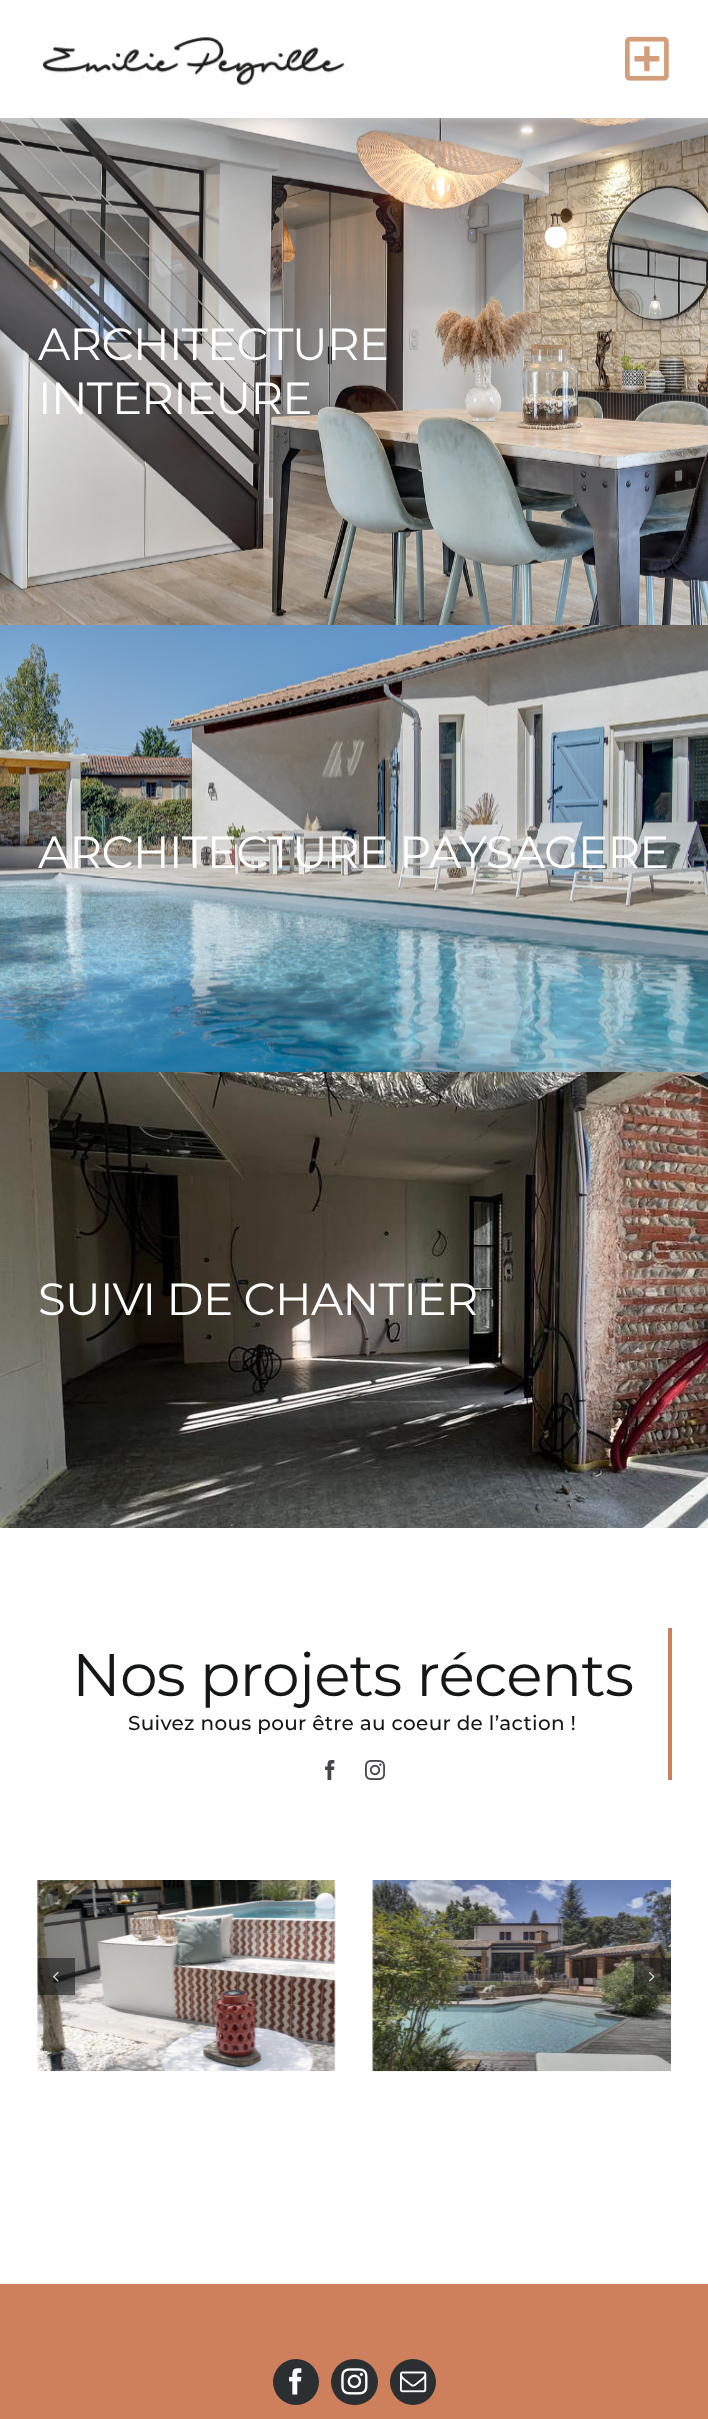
<!DOCTYPE html>
<meta charset="utf-8">
<style>body { margin: 0 } canvas { display: block }</style>
<canvas id="canvas" width="708" height="2419"></canvas>
<img id="img1" src="img_03.png" hidden>
<img id="img2" src="img_01.png" hidden>
<img id="img3" src="img_02.png" hidden>
<img id="img4" src="img_04.png" hidden>
<img id="img5" src="img_05.png" hidden>
<img id="img6" src="img_06.png" hidden>
<img id="img7" src="img_07.png" hidden>
<img id="img8" src="img_08.png" hidden>
<img id="img9" src="img_09.png" hidden>
<img id="img10" src="img_10.png" hidden>
<img id="img11" src="img_11.png" hidden>
<img id="img12" src="img_12.png" hidden>
<img id="img13" src="img_13.png" hidden>
<img id="img14" src="img_14.png" hidden>
<script>
window.onload = function () {
	const canvas = document.getElementById("canvas");
	const ctx = canvas.getContext("2d");
	ctx.miterLimit = 4;
	ctx.fontKerning = "normal";
	function txt(s, x, y) {
		ctx.fillText(s, x, y);
	}
	function fill(x, y, w, h) {
		ctx.fillRect(x, y, w, h);
	}
	function round(x, y, w, h, r) {
		ctx.beginPath();
		ctx.roundRect(x, y, w, h, r);
		ctx.fill();
	}
	function img(id, x, y, w, h) {
		ctx.drawImage(document.getElementById(id), x, y, w, h);
	}

	ctx.fillStyle = "#FFFFFF";
	fill(0, 0, 708, 2419);
	img("img1", 0, 118, 708, 507);
	ctx.fillStyle = "#C9C9C9";
	ctx.filter = "blur(5px)";
	ctx.beginPath();
	ctx.rect(0, 0, 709, 118);
	ctx.fill();
	ctx.filter = "none";
	ctx.fillStyle = "#FFFFFF";
	fill(0, 0, 708, 118);
	img("img2", 42, 37, 307, 49);
	img("img3", 625, 36, 44, 45);
	img("img4", 0, 625, 708, 447);
	img("img5", 0, 1072, 708, 456);
	ctx.fillStyle = "#CE7F5C";
	fill(668, 1628, 4, 152);
	img("img6", 325, 1760, 10, 20);
	img("img7", 365, 1760, 20, 20);
	img("img8", 37, 1880, 299, 192);
	img("img9", 372, 1880, 299, 192);
	ctx.fillStyle = "rgba(19, 21, 22, 0.56)";
	fill(38, 1958, 37, 37);
	img("img10", 53, 1971, 6, 11);
	fill(634, 1958, 37, 37);
	img("img11", 648, 1971, 7, 11);
	ctx.fillStyle = "#CE7F5C";
	fill(0, 2284, 708, 135);
	ctx.fillStyle = "#2B2F31";
	ctx.beginPath();
	ctx.arc(296, 2382, 23, 0, Math.PI * 2);
	ctx.fill();
	img("img12", 289, 2368, 13, 27);
	round(331, 2359, 47, 46, 23);
	img("img13", 341, 2368, 27, 27);
	ctx.beginPath();
	ctx.arc(413, 2382, 23, 0, Math.PI * 2);
	ctx.fill();
	img("img14", 400, 2371, 27, 22);
	ctx.letterSpacing = "-0.7px";
	ctx.font = "45px Montserrat";
	ctx.fillStyle = "#FFFFFF";
	txt("ARCHITECTURE", 38, 360);
	txt("INTERIEURE", 38, 414);
	txt("ARCHITECTURE PAYSAGERE", 38, 868);
	txt("SUIVI DE CHANTIER", 38, 1315);
	ctx.letterSpacing = "-0.9px";
	ctx.font = "60px Montserrat";
	ctx.fillStyle = "#141617";
	txt("Nos projets récents", 72, 1696);
	ctx.letterSpacing = "0.3px";
	ctx.font = "500 20px Montserrat";
	txt("Suivez nous pour être au coeur de l’action !", 128, 1730);
};
</script>
